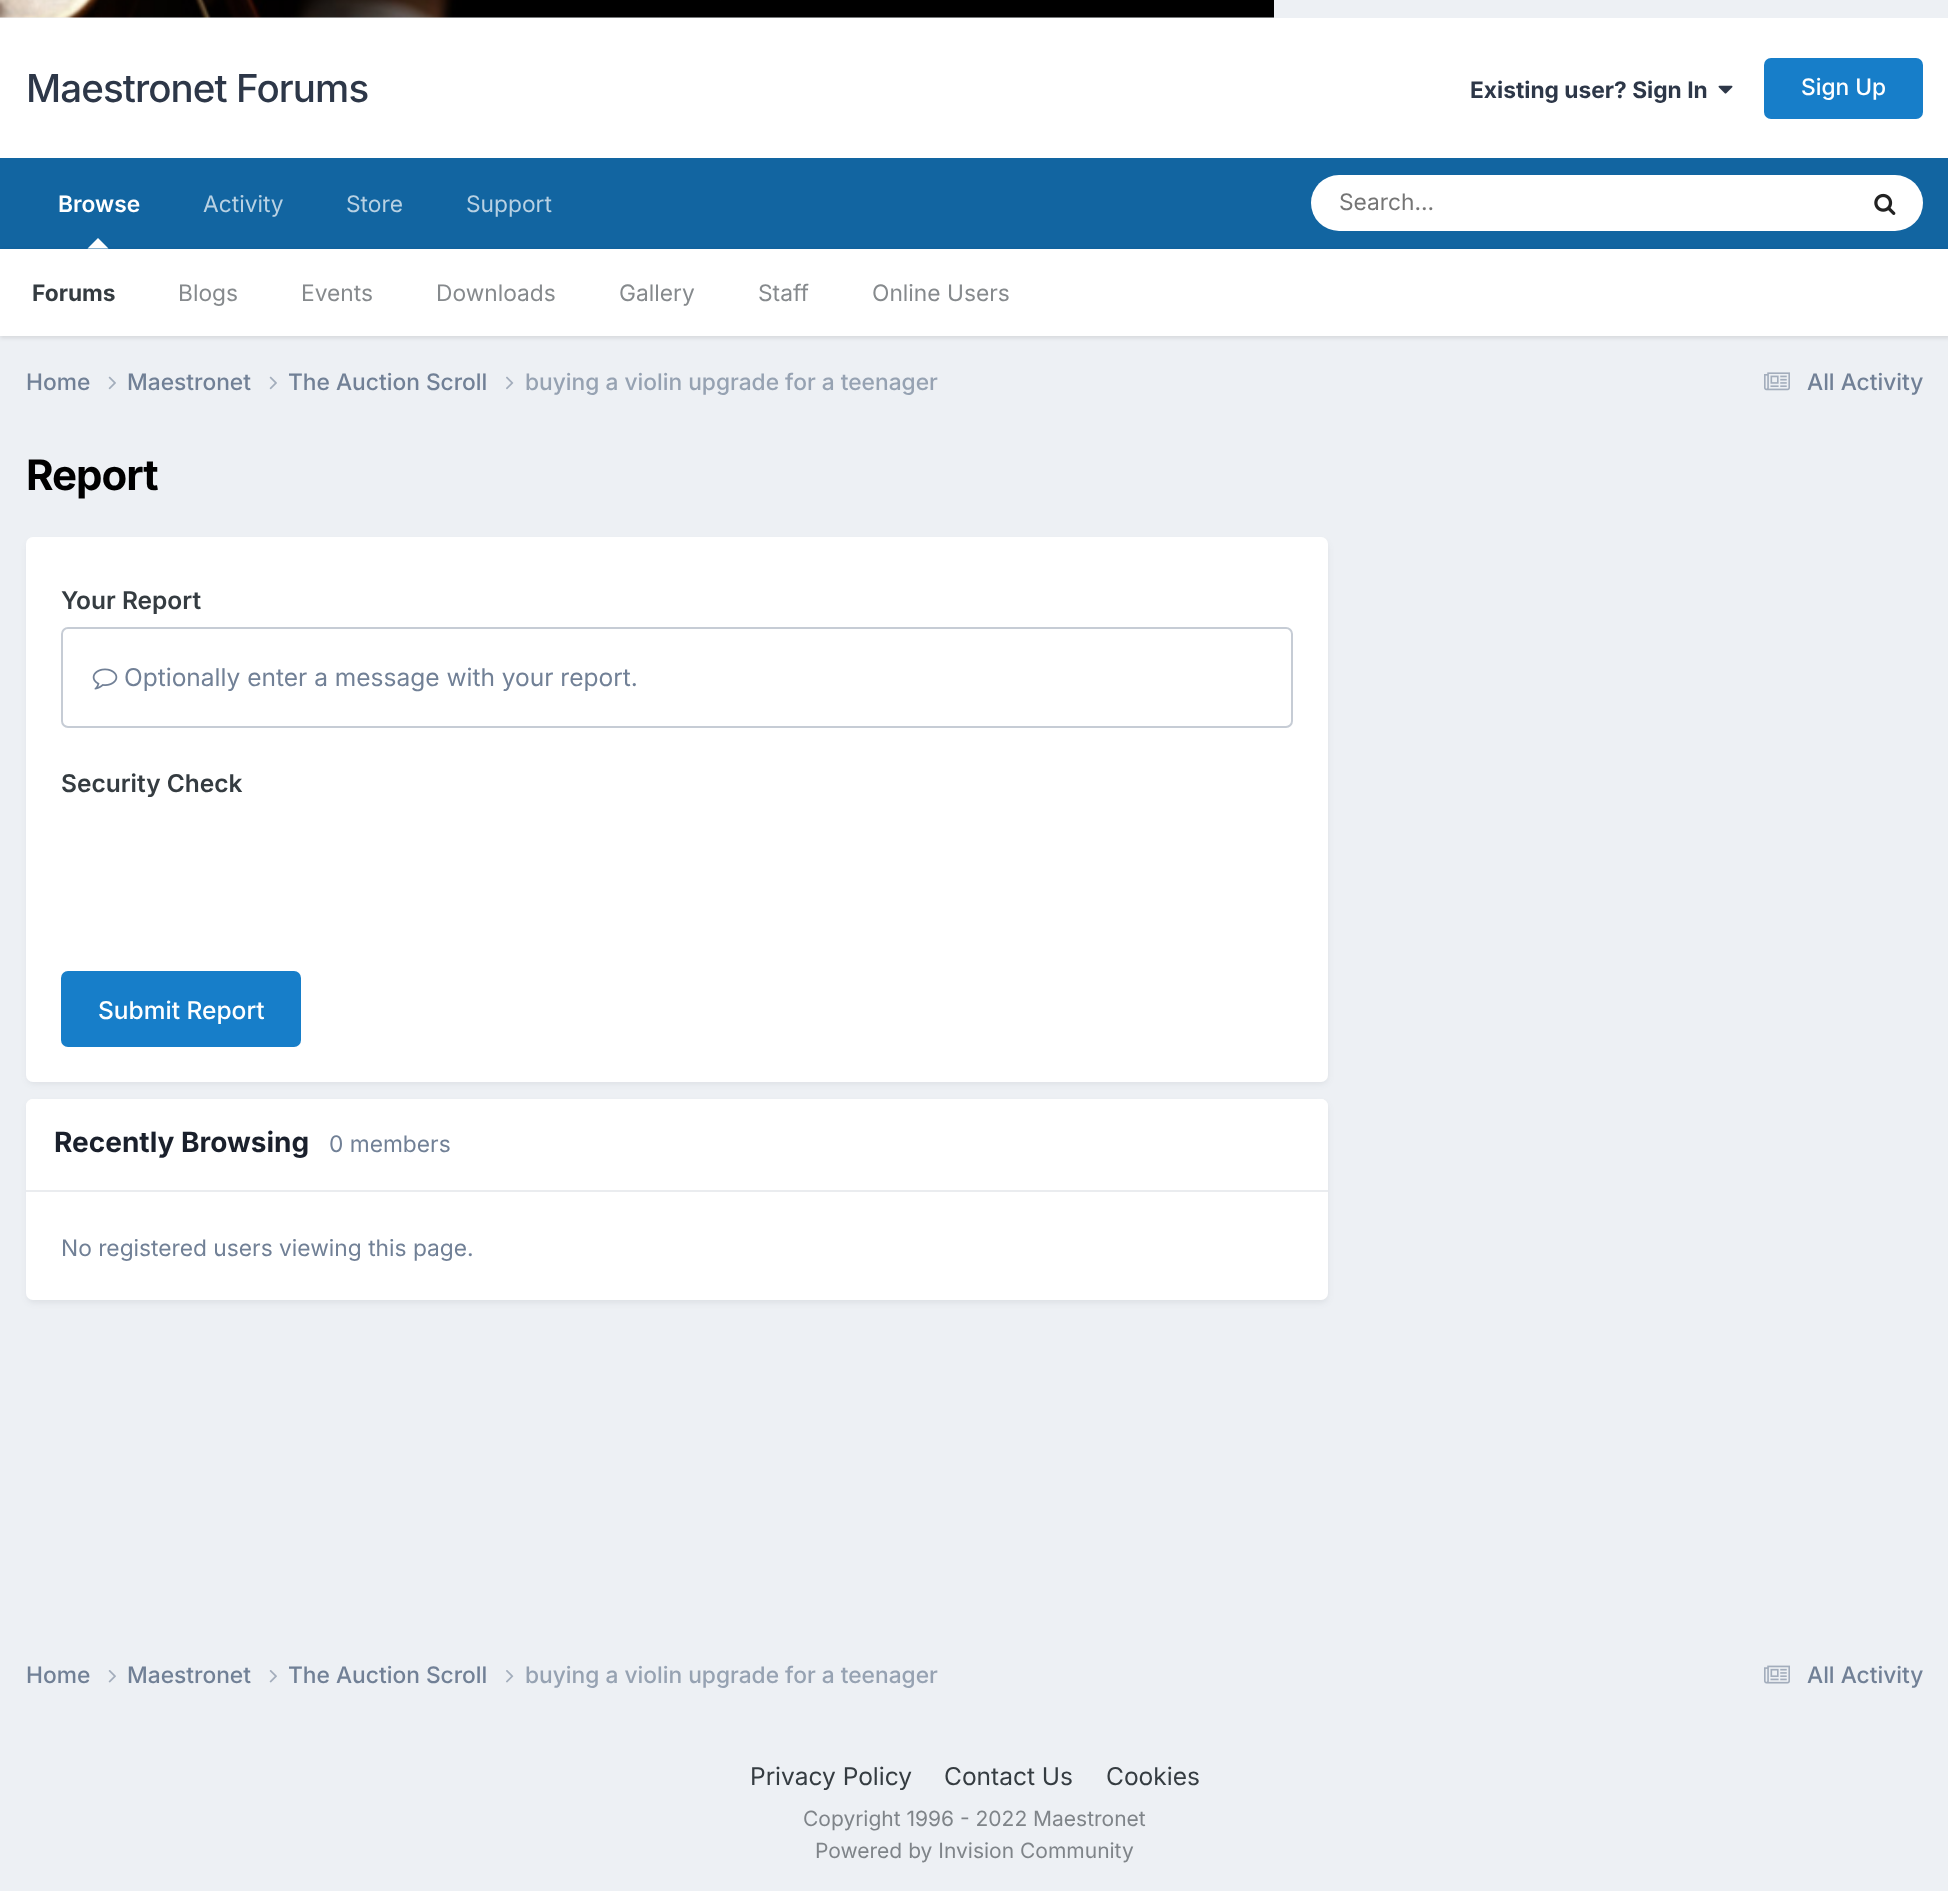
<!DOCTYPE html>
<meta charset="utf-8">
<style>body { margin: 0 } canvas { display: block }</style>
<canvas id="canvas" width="1948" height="1891"></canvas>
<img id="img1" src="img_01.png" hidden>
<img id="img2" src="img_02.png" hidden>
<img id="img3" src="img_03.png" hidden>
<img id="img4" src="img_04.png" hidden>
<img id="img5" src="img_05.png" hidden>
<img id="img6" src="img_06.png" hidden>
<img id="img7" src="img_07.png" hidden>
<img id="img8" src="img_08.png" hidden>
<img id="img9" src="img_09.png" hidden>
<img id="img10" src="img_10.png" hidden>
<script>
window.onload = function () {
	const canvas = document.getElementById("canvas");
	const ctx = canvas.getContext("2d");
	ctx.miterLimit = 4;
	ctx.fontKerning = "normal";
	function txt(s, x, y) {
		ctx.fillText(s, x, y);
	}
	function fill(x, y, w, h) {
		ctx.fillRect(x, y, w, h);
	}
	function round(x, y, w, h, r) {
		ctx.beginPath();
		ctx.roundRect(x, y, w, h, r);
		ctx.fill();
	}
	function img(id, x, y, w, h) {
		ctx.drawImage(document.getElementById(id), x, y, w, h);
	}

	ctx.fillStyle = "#EDF0F4";
	fill(0, 0, 1948, 1891);
	img("img1", 0, 0, 1274, 18);
	ctx.fillStyle = "#FFFFFF";
	fill(0, 18, 1948, 140);
	img("img2", 1718, 85, 15, 9);
	ctx.fillStyle = "#177EC9";
	round(1764, 58, 159, 61, 7);
	ctx.fillStyle = "#1265A1";
	fill(0, 158, 1948, 91);
	ctx.fillStyle = "rgba(0, 0, 0, 0.1)";
	ctx.filter = "blur(2px)";
	ctx.beginPath();
	ctx.rect(0, 250, 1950, 88);
	ctx.fill();
	ctx.filter = "none";
	ctx.fillStyle = "#FFFFFF";
	ctx.beginPath();
	ctx.moveTo(108.5, 248.5);
	ctx.lineTo(87.5, 248.5);
	ctx.lineTo(98, 238);
	ctx.closePath();
	ctx.fill();
	round(1311, 175, 612, 56, 28);
	img("img3", 1874, 193, 22, 22);
	fill(0, 249, 1948, 87);
	img("img4", 108, 376, 8, 14);
	img("img4", 269, 376, 8, 14);
	img("img5", 506, 376, 8, 14);
	img("img6", 1764, 372, 26, 19);
	ctx.fillStyle = "rgba(45, 55, 72, 0.1)";
	ctx.filter = "blur(3.5px)";
	ctx.beginPath();
	ctx.roundRect(28, 543, 1299, 540, 5);
	ctx.fill();
	ctx.filter = "none";
	ctx.fillStyle = "#FFFFFF";
	round(26, 537, 1302, 545, 7);
	ctx.beginPath();
	ctx.roundRect(62, 628, 1230, 99, 6);
	ctx.strokeStyle = "#C6CCD5";
	ctx.lineWidth = 2;
	ctx.stroke();
	img("img7", 92, 668, 26, 22);
	ctx.fillStyle = "#177EC9";
	round(61, 971, 240, 76, 7);
	ctx.fillStyle = "rgba(45, 55, 72, 0.1)";
	ctx.filter = "blur(3.5px)";
	ctx.beginPath();
	ctx.roundRect(28, 1104, 1299, 198, 5);
	ctx.fill();
	ctx.filter = "none";
	ctx.fillStyle = "#FFFFFF";
	round(26, 1099, 1302, 201, 7);
	ctx.beginPath();
	ctx.roundRect(26, 1099, 1302, 93, [7, 7, 0, 0]);
	ctx.fill();
	ctx.fillStyle = "#EAECEF";
	fill(26, 1190, 1302, 2);
	img("img8", 108, 1670, 8, 13);
	img("img8", 269, 1670, 8, 13);
	img("img9", 506, 1670, 8, 13);
	img("img10", 1764, 1665, 26, 19);
	ctx.letterSpacing = "-0.9px";
	ctx.font = "500 38.5px Inter";
	ctx.fillStyle = "#2D3748";
	txt("Maestronet Forums", 26, 102);
	ctx.letterSpacing = "0px";
	ctx.font = "bold 22.75px Inter";
	txt("Existing user? Sign In", 1470, 98);
	ctx.font = "500 22.75px Inter";
	ctx.fillStyle = "#FFFFFF";
	txt("Sign Up", 1801, 95);
	ctx.font = "22.75px Inter";
	ctx.fillStyle = "#B8D1E3";
	txt("Activity", 203, 212);
	ctx.font = "600 22.75px Inter";
	ctx.fillStyle = "#FFFFFF";
	txt("Browse", 58, 212);
	ctx.font = "bold 22.75px Inter";
	ctx.fillStyle = "#353C41";
	txt("Forums", 32, 301);
	ctx.font = "22.75px Inter";
	ctx.fillStyle = "#868A8D";
	txt("Blogs", 178, 301);
	txt("Events", 301, 301);
	txt("Downloads", 436, 301);
	txt("Gallery", 619, 301);
	txt("Staff", 758, 301);
	txt("Online Users", 872, 301);
	ctx.fillStyle = "#B8D1E3";
	txt("Store", 346, 212);
	txt("Support", 466, 212);
	ctx.fillStyle = "#757575";
	txt("Search...", 1339, 210);
	ctx.font = "500 22.75px Inter";
	ctx.fillStyle = "#718096";
	txt("Home", 26, 390);
	txt("Maestronet", 127, 390);
	txt("The Auction Scroll", 288, 390);
	ctx.fillStyle = "#96A2B2";
	txt("buying a violin upgrade for a teenager", 525, 390);
	ctx.fillStyle = "#718096";
	txt("All Activity", 1807, 390);
	ctx.letterSpacing = "-1px";
	ctx.font = "bold 42px Inter";
	ctx.fillStyle = "#000000";
	txt("Report", 26, 490);
	ctx.letterSpacing = "0px";
	ctx.font = "600 24.5px Inter";
	ctx.fillStyle = "#353C41";
	txt("Your Report", 61, 609);
	ctx.font = "24.5px Inter";
	ctx.fillStyle = "#718096";
	txt("Optionally enter a message with your report.", 124, 686);
	ctx.font = "600 24.5px Inter";
	ctx.fillStyle = "#353C41";
	txt("Security Check", 61, 792);
	ctx.font = "500 24.5px Inter";
	ctx.fillStyle = "#FFFFFF";
	txt("Submit Report", 98, 1019);
	ctx.font = "bold 28px Inter";
	ctx.fillStyle = "#1A202C";
	txt("Recently Browsing", 54, 1152);
	ctx.font = "22.75px Inter";
	ctx.fillStyle = "#718096";
	txt("0 members", 329, 1152);
	txt("No registered users viewing this page.", 61, 1256);
	ctx.font = "500 22.75px Inter";
	txt("Home", 26, 1683);
	txt("Maestronet", 127, 1683);
	txt("The Auction Scroll", 288, 1683);
	ctx.fillStyle = "#96A2B2";
	txt("buying a violin upgrade for a teenager", 525, 1683);
	ctx.fillStyle = "#718096";
	txt("All Activity", 1807, 1683);
	ctx.font = "24.5px Inter";
	ctx.fillStyle = "#353C41";
	txt("Privacy Policy", 750, 1785);
	txt("Contact Us", 944, 1785);
	txt("Cookies", 1106, 1785);
	ctx.font = "21px Inter";
	ctx.fillStyle = "#7F8489";
	txt("Copyright 1996 - 2022 Maestronet", 803, 1826);
	txt("Powered by Invision Community", 815, 1858);
};
</script>
